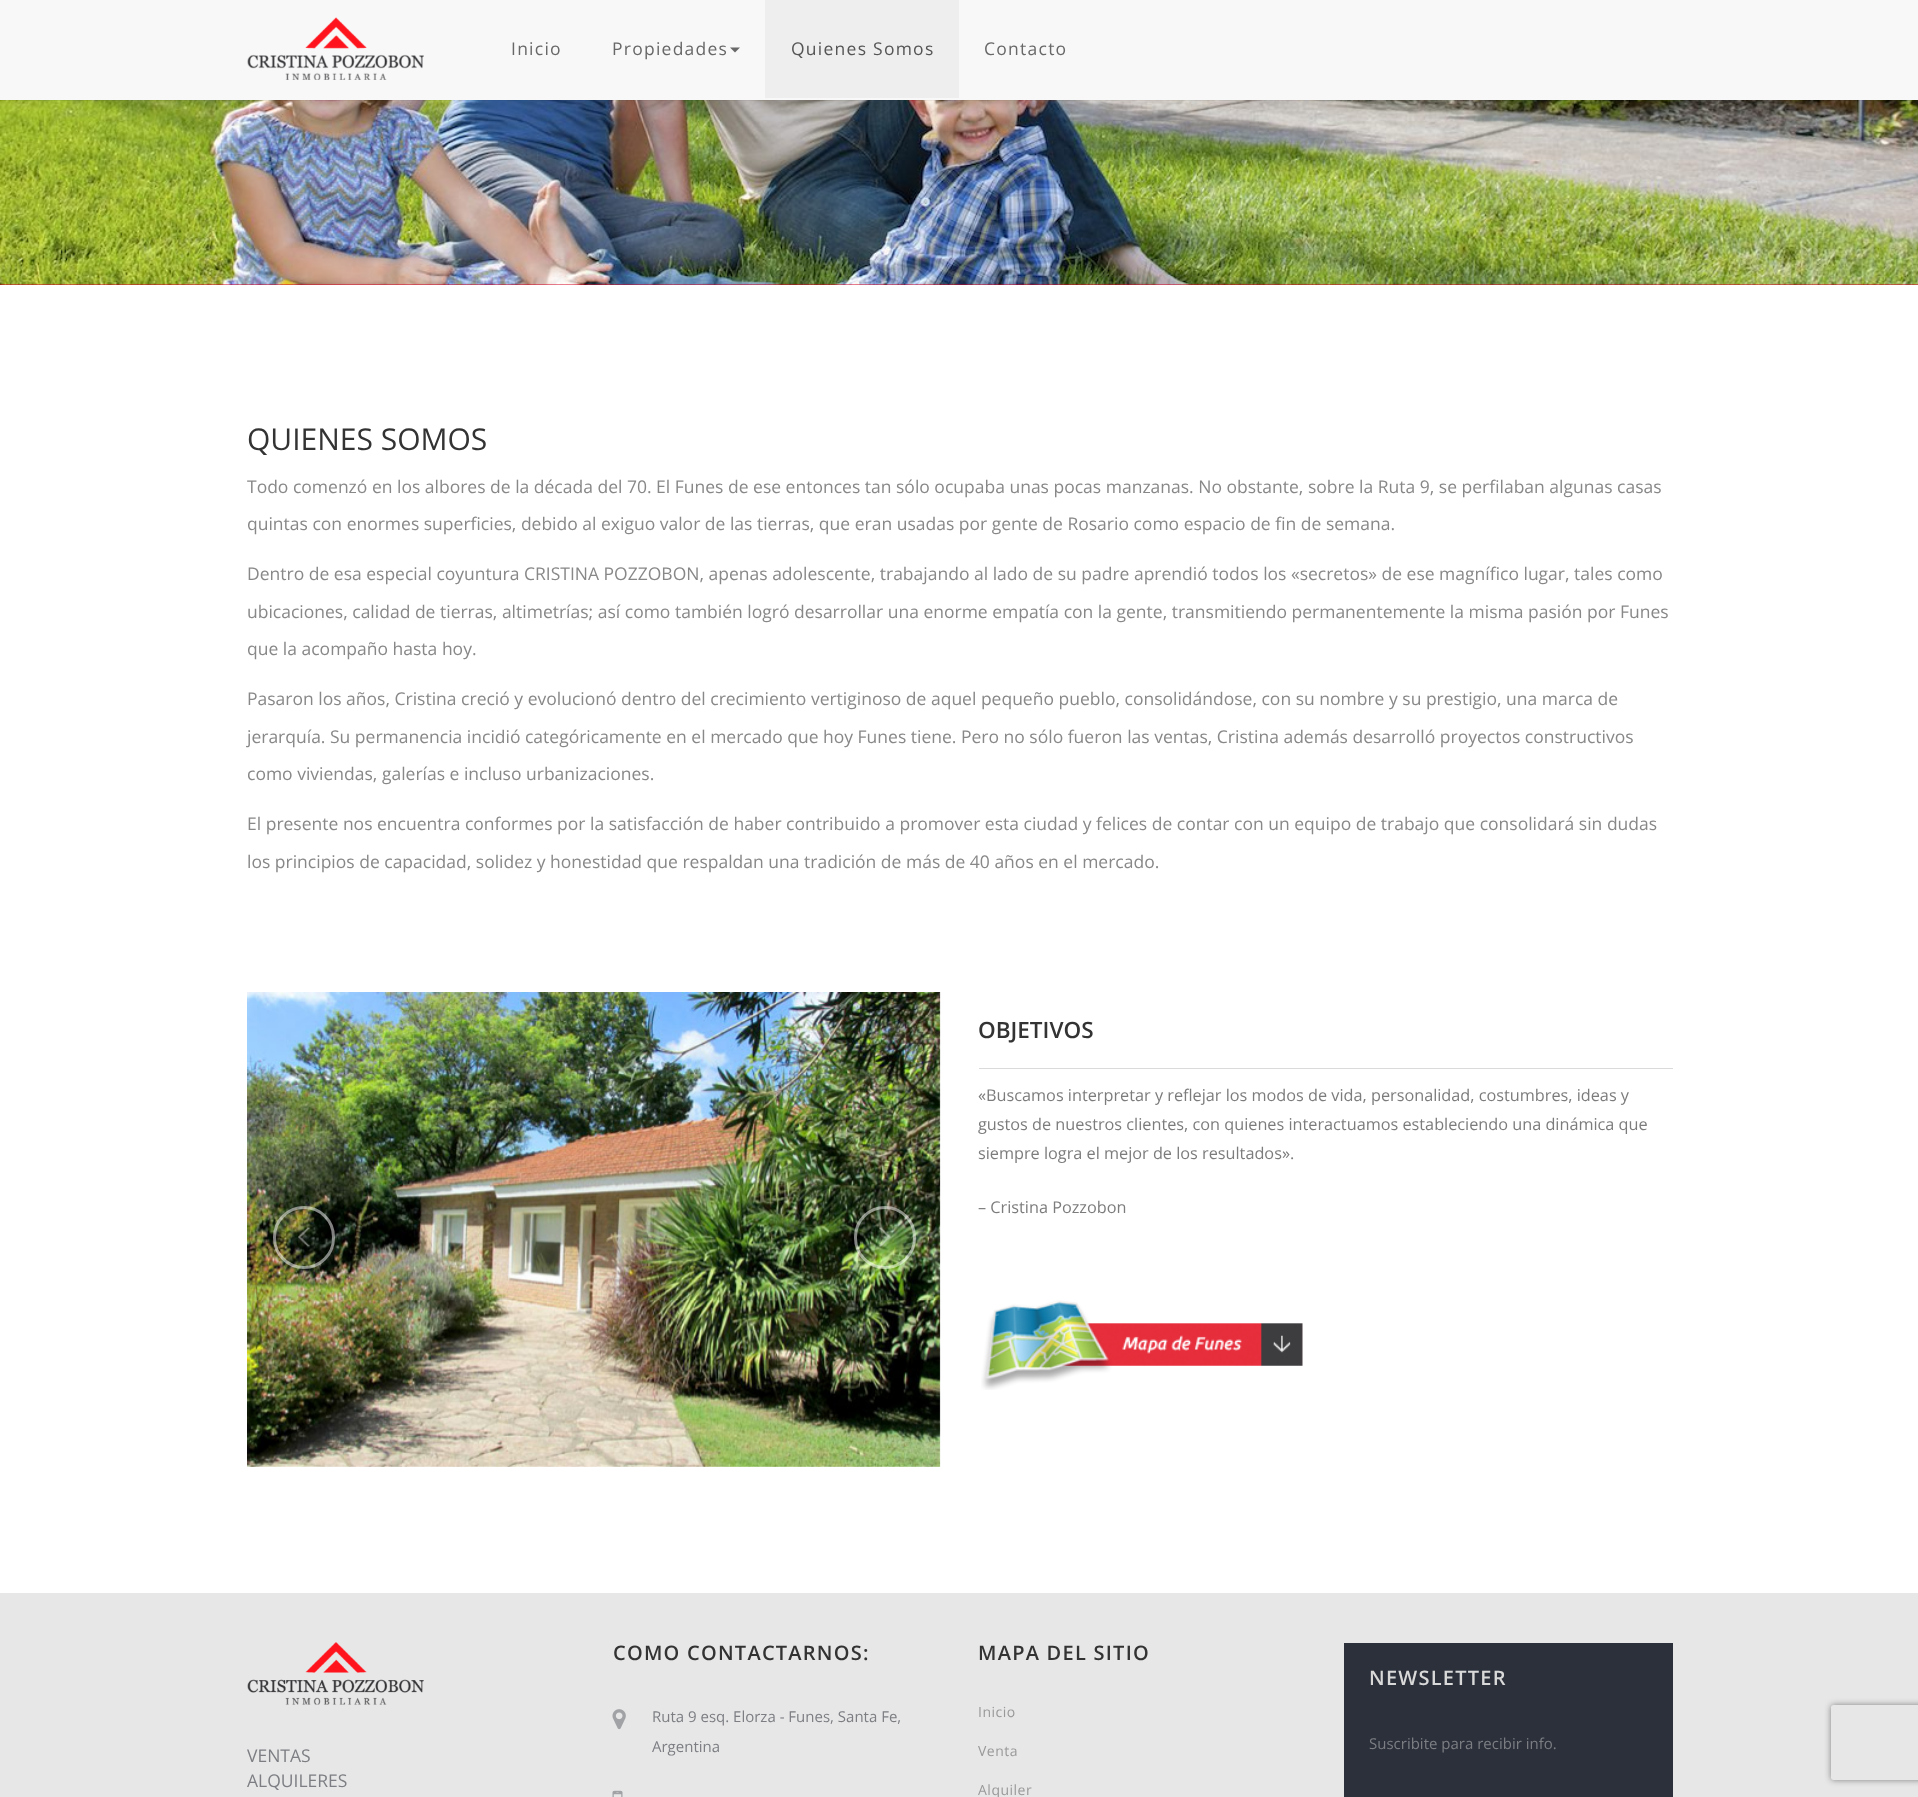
<!DOCTYPE html>
<meta charset="utf-8">
<style>body { margin: 0 } canvas { display: block }</style>
<canvas id="canvas" width="1918" height="1797"></canvas>
<img id="img1" src="img_02.png" hidden>
<img id="img2" src="img_01.png" hidden>
<img id="img3" src="img_03.png" hidden>
<img id="img4" src="img_04.png" hidden>
<img id="img5" src="img_05.png" hidden>
<img id="img6" src="img_06.png" hidden>
<img id="img7" src="img_07.png" hidden>
<img id="img8" src="img_08.png" hidden>
<img id="img9" src="img_09.png" hidden>
<script>
window.onload = function () {
	const canvas = document.getElementById("canvas");
	const ctx = canvas.getContext("2d");
	ctx.miterLimit = 4;
	ctx.fontKerning = "normal";
	function txt(s, x, y) {
		ctx.fillText(s, x, y);
	}
	function fill(x, y, w, h) {
		ctx.fillRect(x, y, w, h);
	}
	function img(id, x, y, w, h) {
		ctx.drawImage(document.getElementById(id), x, y, w, h);
	}

	ctx.fillStyle = "#FFFFFF";
	fill(0, 0, 1918, 1797);
	ctx.fillStyle = "#D20023";
	fill(0, 284, 1918, 1);
	img("img1", 0, 100, 1918, 185);
	ctx.fillStyle = "rgba(0, 0, 0, 0.05)";
	ctx.filter = "blur(0.5px)";
	ctx.beginPath();
	ctx.rect(0, 1, 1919, 100);
	ctx.fill();
	ctx.filter = "none";
	ctx.fillStyle = "#F8F8F8";
	fill(0, 0, 1918, 100);
	img("img2", 247, 17, 177, 63);
	ctx.fillStyle = "#686868";
	ctx.beginPath();
	ctx.moveTo(730, 47.5);
	ctx.lineTo(740, 47.5);
	ctx.lineTo(735, 52.5);
	ctx.closePath();
	ctx.fill();
	ctx.fillStyle = "#EEEEEE";
	fill(765, 0, 194, 98);
	img("img3", 247, 992, 694, 475);
	ctx.beginPath();
	ctx.roundRect(274.5, 1207.5, 59, 60, 29.5);
	ctx.strokeStyle = "rgba(255, 255, 255, 0.5)";
	ctx.lineWidth = 3;
	ctx.stroke();
	img("img4", 298, 1226, 12, 22);
	ctx.beginPath();
	ctx.roundRect(855.5, 1207.5, 59, 60, 29.5);
	ctx.stroke();
	img("img5", 879, 1226, 12, 22);
	ctx.fillStyle = "#DBDADA";
	fill(979, 1068, 694, 1);
	img("img6", 981, 1300, 322, 90);
	ctx.fillStyle = "#E7E7E7";
	fill(0, 1593, 1918, 204);
	img("img7", 612, 1709, 14, 21);
	img("img8", 612, 1790, 11, 7);
	ctx.fillStyle = "#2B303B";
	fill(1344, 1643, 329, 154);
	img("img9", 247, 1642, 177, 63);
	ctx.save();
	ctx.beginPath();
	ctx.moveTo(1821, 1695);
	ctx.lineTo(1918, 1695);
	ctx.lineTo(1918, 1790);
	ctx.lineTo(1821, 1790);
	ctx.closePath();
	ctx.moveTo(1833.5, 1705);
	ctx.lineTo(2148.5, 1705);
	ctx.bezierCurveTo(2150, 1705, 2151, 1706, 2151, 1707.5);
	ctx.lineTo(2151, 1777.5);
	ctx.bezierCurveTo(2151, 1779, 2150, 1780, 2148.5, 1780);
	ctx.lineTo(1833.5, 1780);
	ctx.bezierCurveTo(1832, 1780, 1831, 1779, 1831, 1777.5);
	ctx.lineTo(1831, 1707.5);
	ctx.bezierCurveTo(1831, 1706, 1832, 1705, 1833.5, 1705);
	ctx.closePath();
	ctx.clip("evenodd");
	ctx.fillStyle = "#808080";
	ctx.filter = "blur(3px)";
	ctx.beginPath();
	ctx.roundRect(1831, 1705, 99, 75, 2.5);
	ctx.fill();
	ctx.filter = "none";
	ctx.restore();
	ctx.letterSpacing = "1.25px";
	ctx.font = "17.5px Open Sans";
	ctx.fillStyle = "#686868";
	txt("Inicio", 511, 55);
	txt("Propiedades", 612, 55);
	ctx.fillStyle = "#555555";
	txt("Quienes Somos", 791, 55);
	ctx.fillStyle = "#686868";
	txt("Contacto", 984, 55);
	ctx.letterSpacing = "0px";
	ctx.font = "30px Open Sans";
	ctx.fillStyle = "#333333";
	txt("QUIENES SOMOS", 247, 450);
	ctx.font = "17.5px Open Sans";
	ctx.fillStyle = "#888888";
	txt("Todo comenzó en los albores de la década del 70. El Funes de ese entonces tan sólo ocupaba unas pocas manzanas. No obstante, sobre la Ruta 9, se perfilaban algunas casas", 247, 493);
	txt("quintas con enormes superficies, debido al exiguo valor de las tierras, que eran usadas por gente de Rosario como espacio de fin de semana.", 247, 530);
	txt("Dentro de esa especial coyuntura CRISTINA POZZOBON, apenas adolescente, trabajando al lado de su padre aprendió todos los «secretos» de ese magnífico lugar, tales como", 247, 580);
	txt("ubicaciones, calidad de tierras, altimetrías; así como también logró desarrollar una enorme empatía con la gente, transmitiendo permanentemente la misma pasión por Funes", 247, 618);
	txt("que la acompaño hasta hoy.", 247, 655);
	txt("Pasaron los años, Cristina creció y evolucionó dentro del crecimiento vertiginoso de aquel pequeño pueblo, consolidándose, con su nombre y su prestigio, una marca de", 247, 705);
	txt("jerarquía. Su permanencia incidió categóricamente en el mercado que hoy Funes tiene. Pero no sólo fueron las ventas, Cristina además desarrolló proyectos constructivos", 247, 743);
	txt("como viviendas, galerías e incluso urbanizaciones.", 247, 780);
	txt("El presente nos encuentra conformes por la satisfacción de haber contribuido a promover esta ciudad y felices de contar con un equipo de trabajo que consolidará sin dudas", 247, 830);
	txt("los principios de capacidad, solidez y honestidad que respaldan una tradición de más de 40 años en el mercado.", 247, 868);
	ctx.font = "600 22.5px Open Sans";
	ctx.fillStyle = "#333333";
	txt("OBJETIVOS", 978, 1038);
	ctx.font = "16.25px Open Sans";
	ctx.fillStyle = "#7C7C7C";
	txt("«Buscamos interpretar y reflejar los modos de vida, personalidad, costumbres, ideas y", 978, 1101);
	txt("gustos de nuestros clientes, con quienes interactuamos estableciendo una dinámica que", 978, 1130);
	txt("siempre logra el mejor de los resultados».", 978, 1159);
	txt("– Cristina Pozzobon", 978, 1213);
	ctx.letterSpacing = "1.25px";
	ctx.font = "600 20px Open Sans";
	ctx.fillStyle = "#333333";
	txt("COMO CONTACTARNOS:", 613, 1660);
	ctx.letterSpacing = "0px";
	ctx.font = "15px Open Sans";
	ctx.fillStyle = "#7C7E83";
	txt("Ruta 9 esq. Elorza - Funes, Santa Fe,", 652, 1722);
	txt("Argentina", 652, 1752);
	ctx.letterSpacing = "1.25px";
	ctx.font = "600 20px Open Sans";
	ctx.fillStyle = "#333333";
	txt("MAPA DEL SITIO", 978, 1660);
	ctx.letterSpacing = "0.5px";
	ctx.font = "14px Open Sans";
	ctx.fillStyle = "#999999";
	txt("Inicio", 978, 1717);
	txt("Venta", 978, 1756);
	txt("Alquiler", 978, 1795);
	ctx.letterSpacing = "1.25px";
	ctx.font = "600 20px Open Sans";
	ctx.fillStyle = "#D9D9D9";
	txt("NEWSLETTER", 1369, 1685);
	ctx.letterSpacing = "0px";
	ctx.font = "15px Open Sans";
	ctx.fillStyle = "#7C7E83";
	txt("Suscribite para recibir info.", 1369, 1749);
	ctx.font = "17.5px Open Sans";
	txt("VENTAS", 247, 1762);
	txt("ALQUILERES", 247, 1787);
};
</script>
